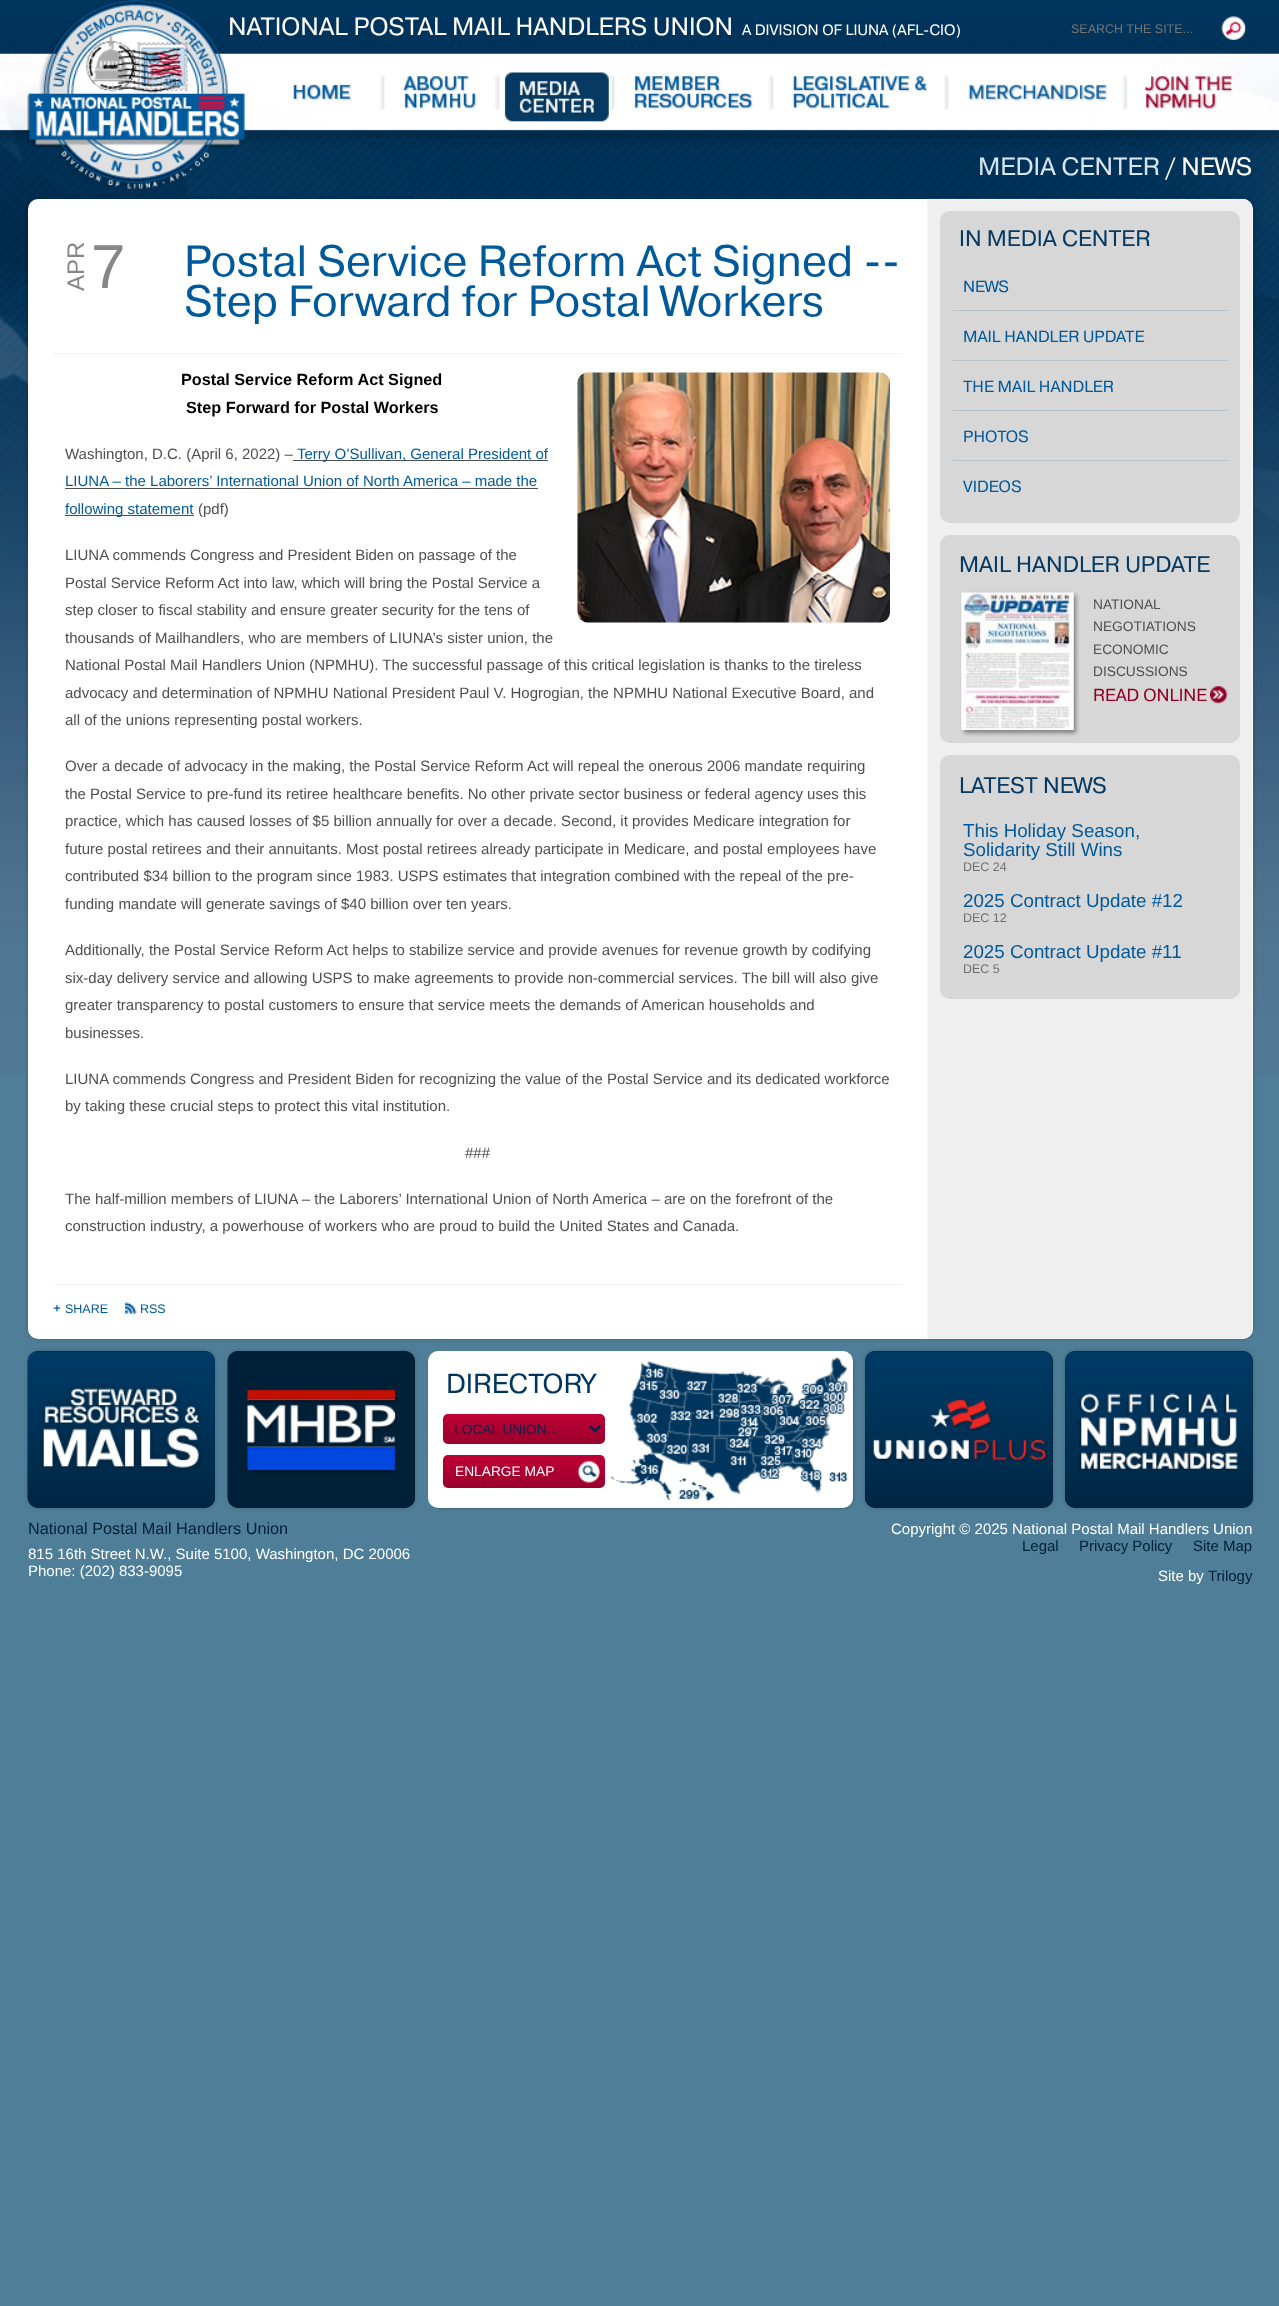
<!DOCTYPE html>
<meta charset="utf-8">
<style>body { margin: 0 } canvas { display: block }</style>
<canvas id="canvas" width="1279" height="2306"></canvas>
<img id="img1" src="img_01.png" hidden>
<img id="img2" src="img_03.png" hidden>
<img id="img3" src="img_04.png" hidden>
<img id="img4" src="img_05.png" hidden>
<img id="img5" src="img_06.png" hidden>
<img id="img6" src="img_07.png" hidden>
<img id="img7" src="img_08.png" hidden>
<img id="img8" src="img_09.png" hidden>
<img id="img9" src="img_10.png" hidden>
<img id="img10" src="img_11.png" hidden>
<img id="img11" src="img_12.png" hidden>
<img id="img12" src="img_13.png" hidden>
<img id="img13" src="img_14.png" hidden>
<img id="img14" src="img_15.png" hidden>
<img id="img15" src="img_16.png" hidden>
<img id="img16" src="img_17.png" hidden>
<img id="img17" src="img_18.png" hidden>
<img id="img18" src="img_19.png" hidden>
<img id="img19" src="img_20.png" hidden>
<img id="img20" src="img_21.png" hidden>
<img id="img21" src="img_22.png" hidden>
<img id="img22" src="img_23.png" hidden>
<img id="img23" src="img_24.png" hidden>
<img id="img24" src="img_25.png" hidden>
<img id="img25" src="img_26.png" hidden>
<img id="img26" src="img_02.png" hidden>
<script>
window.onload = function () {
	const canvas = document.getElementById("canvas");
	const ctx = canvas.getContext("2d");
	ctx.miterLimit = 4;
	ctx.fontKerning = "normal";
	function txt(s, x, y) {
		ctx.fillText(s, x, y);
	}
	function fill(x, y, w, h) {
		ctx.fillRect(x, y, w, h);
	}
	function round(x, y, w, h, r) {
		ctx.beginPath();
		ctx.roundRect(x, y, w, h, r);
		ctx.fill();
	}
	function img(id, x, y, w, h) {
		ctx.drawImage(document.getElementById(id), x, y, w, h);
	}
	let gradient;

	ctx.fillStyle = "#4F7F98";
	fill(0, 0, 1279, 2306);
	img("img1", 0, 0, 1279, 1076);
	img("img2", 1221, 16, 26, 24);
	img("img3", 380, 75, 5, 35);
	img("img4", 293, 84, 59, 17);
	img("img5", 495, 75, 5, 35);
	img("img6", 403, 76, 74, 34);
	img("img3", 610, 75, 5, 35);
	img("img7", 504, 72, 105, 50);
	img("img8", 769, 75, 5, 35);
	img("img9", 634, 76, 120, 34);
	img("img8", 944, 75, 5, 35);
	img("img10", 793, 76, 135, 34);
	img("img11", 1122, 75, 6, 35);
	img("img12", 968, 84, 140, 18);
	img("img13", 1144, 76, 90, 34);
	ctx.fillStyle = "rgba(0, 0, 0, 0.2)";
	ctx.filter = "blur(2.5px)";
	ctx.beginPath();
	ctx.roundRect(28, 199, 1225, 1140, 10);
	ctx.fill();
	ctx.filter = "none";
	ctx.fillStyle = "#FFFFFF";
	round(28, 199, 1225, 1140, 10);
	img("img14", 927, 198, 326, 1141);
	ctx.fillStyle = "#F2F2F2";
	fill(53, 353, 850, 1);
	img("img15", 577, 372, 313, 251);
	ctx.fillStyle = "#4F4F4F";
	fill(293, 460, 255, 1);
	fill(65, 488, 473, 1);
	fill(65, 515, 129, 1);
	ctx.fillStyle = "#F2F2F2";
	fill(53, 1284, 850, 1);
	img("img16", 53, 1304, 8, 8);
	img("img17", 124, 1302, 13, 12);
	ctx.fillStyle = "#D7D7D7";
	round(940, 211, 300, 312, 10);
	ctx.fillStyle = "#B3C2CD";
	fill(953, 310, 275, 1);
	fill(953, 360, 275, 1);
	fill(953, 410, 275, 1);
	fill(953, 460, 275, 1);
	ctx.fillStyle = "#D7D7D7";
	round(940, 535, 300, 208, 10);
	ctx.fillStyle = "rgba(0, 0, 0, 0.4)";
	ctx.filter = "blur(2px)";
	ctx.beginPath();
	ctx.rect(964, 595, 112, 138);
	ctx.fill();
	ctx.filter = "none";
	img("img18", 961, 592, 113, 138);
	img("img19", 1210, 686, 18, 18);
	ctx.fillStyle = "#D7D7D7";
	round(940, 755, 300, 244, 10);
	ctx.fillStyle = "rgba(0, 0, 0, 0.2)";
	ctx.filter = "blur(2.5px)";
	ctx.beginPath();
	ctx.roundRect(28, 1351, 187, 157, 10);
	ctx.fill();
	ctx.filter = "none";
	ctx.fillStyle = "#002038";
	round(28, 1351, 187, 157, 10);
	img("img20", 27, 1351, 189, 157);
	ctx.fillStyle = "rgba(0, 0, 0, 0.2)";
	ctx.filter = "blur(2.5px)";
	ctx.beginPath();
	ctx.roundRect(228, 1351, 187, 157, 10);
	ctx.fill();
	ctx.filter = "none";
	ctx.fillStyle = "#002038";
	round(228, 1351, 187, 157, 10);
	img("img21", 227, 1351, 189, 157);
	ctx.fillStyle = "rgba(0, 0, 0, 0.2)";
	ctx.filter = "blur(1px)";
	ctx.beginPath();
	ctx.roundRect(429, 1353, 425, 156, 10);
	ctx.fill();
	ctx.filter = "none";
	ctx.fillStyle = "#FFFFFF";
	round(428, 1351, 425, 157, 10);
	img("img22", 610, 1357, 238, 145);
	gradient = ctx.createLinearGradient(443, 1414, 443, 1444);
	gradient.addColorStop(0, "#BF0037");
	gradient.addColorStop(1, "#9A002C");
	ctx.fillStyle = gradient;
	round(443, 1414, 162, 30, 5);
	ctx.beginPath();
	ctx.moveTo(590, 1426);
	ctx.lineTo(595, 1431);
	ctx.lineTo(600, 1426);
	ctx.strokeStyle = "#00284A";
	ctx.lineWidth = 2.5;
	ctx.stroke();
	gradient = ctx.createLinearGradient(443, 1455, 443, 1488);
	gradient.addColorStop(0, "#BF0037");
	gradient.addColorStop(1, "#9A002C");
	ctx.fillStyle = gradient;
	round(443, 1455, 162, 33, 5);
	img("img23", 577, 1461, 23, 22);
	ctx.fillStyle = "rgba(0, 0, 0, 0.2)";
	ctx.filter = "blur(2.5px)";
	ctx.beginPath();
	ctx.roundRect(865, 1351, 188, 157, 10);
	ctx.fill();
	ctx.filter = "none";
	ctx.fillStyle = "#002038";
	round(865, 1351, 188, 157, 10);
	img("img24", 864, 1351, 189, 157);
	ctx.fillStyle = "rgba(0, 0, 0, 0.2)";
	ctx.filter = "blur(2.5px)";
	ctx.beginPath();
	ctx.roundRect(1065, 1351, 188, 157, 10);
	ctx.fill();
	ctx.filter = "none";
	ctx.fillStyle = "#002038";
	round(1065, 1351, 188, 157, 10);
	img("img25", 1064, 1351, 189, 157);
	ctx.font = "25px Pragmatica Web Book";
	ctx.fillStyle = "#FFFFFF";
	txt("NATIONAL POSTAL MAIL HANDLERS UNION", 228, 35);
	img("img26", 27, 0, 218, 189);
	ctx.font = "15px Pragmatica Web Book";
	txt("A DIVISION OF LIUNA (AFL-CIO)", 742, 35);
	ctx.font = "12.5px Liberation Sans";
	ctx.fillStyle = "#757575";
	txt("SEARCH THE SITE...", 1071, 33);
	ctx.font = "25px Pragmatica Web Book";
	ctx.fillStyle = "#D7E5F0";
	txt("MEDIA CENTER", 978, 175);
	ctx.fillStyle = "#FFFFFF";
	txt("/ NEWS", 1165, 175);
	ctx.font = "24px Liberation Sans";
	ctx.fillStyle = "#878787";
	ctx.save();
	ctx.translate(84, 291);
	ctx.rotate(-90 * Math.PI / 180);
	ctx.fillText("APR", 0, 0);
	ctx.restore();
	ctx.font = "62px Liberation Sans";
	txt("7", 91, 288);
	ctx.font = "43.75px Pragmatica Web Book";
	ctx.fillStyle = "#00599B";
	txt("Postal Service Reform Act Signed --", 184, 276);
	txt("Step Forward for Postal Workers", 184, 316);
	ctx.font = "bold 16.25px Liberation Sans";
	ctx.fillStyle = "#000000";
	txt("Postal Service Reform Act Signed", 181, 385);
	txt("Step Forward for Postal Workers", 186, 413);
	ctx.font = "15px Liberation Sans";
	ctx.fillStyle = "#4F4F4F";
	txt("Washington, D.C. (April 6, 2022) –", 65, 459);
	ctx.fillStyle = "#00599B";
	txt("Terry O’Sullivan, General President of", 297, 459);
	txt("LIUNA – the Laborers’ International Union of North America – made the", 65, 486);
	txt("following statement", 65, 514);
	ctx.fillStyle = "#4F4F4F";
	txt("(pdf)", 198, 514);
	txt("LIUNA commends Congress and President Biden on passage of the", 65, 560);
	txt("Postal Service Reform Act into law, which will bring the Postal Service a", 65, 588);
	txt("step closer to fiscal stability and ensure greater security for the tens of", 65, 615);
	txt("thousands of Mailhandlers, who are members of LIUNA’s sister union, the", 65, 643);
	txt("National Postal Mail Handlers Union (NPMHU). The successful passage of this critical legislation is thanks to the tireless", 65, 670);
	txt("advocacy and determination of NPMHU National President Paul V. Hogrogian, the NPMHU National Executive Board, and", 65, 698);
	txt("all of the unions representing postal workers.", 65, 725);
	txt("Over a decade of advocacy in the making, the Postal Service Reform Act will repeal the onerous 2006 mandate requiring", 65, 771);
	txt("the Postal Service to pre-fund its retiree healthcare benefits. No other private sector business or federal agency uses this", 65, 799);
	txt("practice, which has caused losses of $5 billion annually for over a decade. Second, it provides Medicare integration for", 65, 826);
	txt("future postal retirees and their annuitants. Most postal retirees already participate in Medicare, and postal employees have", 65, 854);
	txt("contributed $34 billion to the program since 1983. USPS estimates that integration combined with the repeal of the pre-", 65, 881);
	txt("funding mandate will generate savings of $40 billion over ten years.", 65, 909);
	txt("Additionally, the Postal Service Reform Act helps to stabilize service and provide avenues for revenue growth by codifying", 65, 955);
	txt("six-day delivery service and allowing USPS to make agreements to provide non-commercial services. The bill will also give", 65, 983);
	txt("greater transparency to postal customers to ensure that service meets the demands of American households and", 65, 1010);
	txt("businesses.", 65, 1038);
	txt("LIUNA commends Congress and President Biden for recognizing the value of the Postal Service and its dedicated workforce", 65, 1084);
	txt("by taking these crucial steps to protect this vital institution.", 65, 1111);
	txt("###", 465, 1158);
	txt("The half-million members of LIUNA – the Laborers’ International Union of North America – are on the forefront of the", 65, 1204);
	txt("construction industry, a powerhouse of workers who are proud to build the United States and Canada.", 65, 1231);
	ctx.font = "12.5px Liberation Sans";
	ctx.fillStyle = "#00599B";
	txt("SHARE", 65, 1313);
	txt("RSS", 140, 1313);
	ctx.font = "22.5px Pragmatica Web Book";
	ctx.fillStyle = "#073A62";
	txt("IN MEDIA CENTER", 959, 246);
	ctx.font = "16.25px Pragmatica Web Book";
	ctx.fillStyle = "#00599B";
	txt("NEWS", 963, 292);
	txt("MAIL HANDLER UPDATE", 963, 342);
	txt("THE MAIL HANDLER", 963, 392);
	txt("PHOTOS", 963, 442);
	txt("VIDEOS", 963, 492);
	ctx.font = "22.5px Pragmatica Web Book";
	ctx.fillStyle = "#073A62";
	txt("MAIL HANDLER UPDATE", 959, 572);
	ctx.font = "13.75px Liberation Sans";
	ctx.fillStyle = "#4F4F4F";
	txt("NATIONAL", 1093, 609);
	txt("NEGOTIATIONS", 1093, 631);
	txt("ECONOMIC", 1093, 654);
	txt("DISCUSSIONS", 1093, 676);
	ctx.font = "17.5px Pragmatica Web Book";
	ctx.fillStyle = "#920026";
	txt("READ ONLINE", 1093, 701);
	ctx.font = "22.5px Pragmatica Web Book";
	ctx.fillStyle = "#073A62";
	txt("LATEST NEWS", 959, 793);
	ctx.font = "18.75px Liberation Sans";
	ctx.fillStyle = "#00599B";
	txt("This Holiday Season,", 963, 837);
	txt("Solidarity Still Wins", 963, 856);
	ctx.font = "12.5px Liberation Sans";
	ctx.fillStyle = "#6E6E6E";
	txt("DEC 24", 963, 871);
	ctx.font = "18.75px Liberation Sans";
	ctx.fillStyle = "#00599B";
	txt("2025 Contract Update #12", 963, 907);
	ctx.font = "12.5px Liberation Sans";
	ctx.fillStyle = "#6E6E6E";
	txt("DEC 12", 963, 922);
	ctx.font = "18.75px Liberation Sans";
	ctx.fillStyle = "#00599B";
	txt("2025 Contract Update #11", 963, 958);
	ctx.font = "12.5px Liberation Sans";
	ctx.fillStyle = "#6E6E6E";
	txt("DEC 5", 963, 973);
	ctx.font = "27.5px Pragmatica Web Book";
	ctx.fillStyle = "#00355D";
	txt("DIRECTORY", 446, 1393);
	ctx.font = "13.75px Liberation Sans";
	ctx.fillStyle = "#00284A";
	txt("LOCAL UNION...", 454, 1434);
	ctx.fillStyle = "#FFFFFF";
	txt("ENLARGE MAP", 455, 1476);
	ctx.font = "16.25px Liberation Sans";
	ctx.fillStyle = "#002038";
	txt("National Postal Mail Handlers Union", 28, 1534);
	ctx.font = "15px Liberation Sans";
	ctx.fillStyle = "#FFFFFF";
	txt("Copyright © 2025 National Postal Mail Handlers Union", 891, 1534);
	ctx.fillStyle = "#002038";
	txt("Legal", 1022, 1551);
	txt("Privacy Policy", 1079, 1551);
	txt("Site Map", 1193, 1551);
	ctx.fillStyle = "#FFFFFF";
	txt("Site by", 1158, 1581);
	ctx.fillStyle = "#002038";
	txt("Trilogy", 1208, 1581);
	ctx.fillStyle = "#FFFFFF";
	txt("815 16th Street N.W., Suite 5100, Washington, DC 20006", 28, 1559);
	txt("Phone: (202) 833-9095", 28, 1576);
};
</script>
